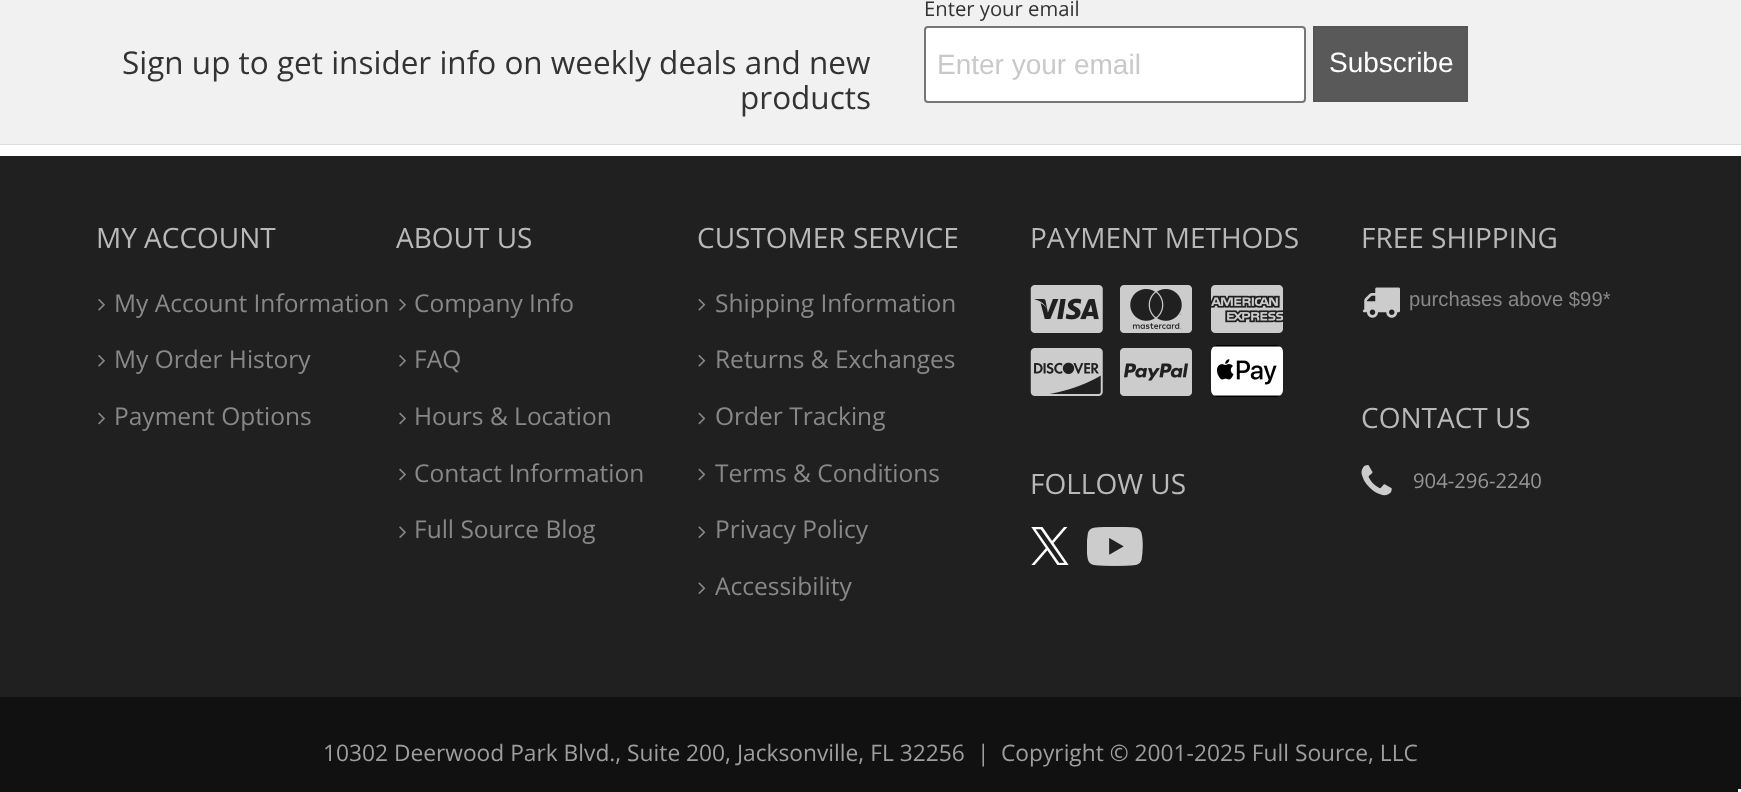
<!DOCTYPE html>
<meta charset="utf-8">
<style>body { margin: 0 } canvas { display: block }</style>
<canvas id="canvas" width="1741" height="792"></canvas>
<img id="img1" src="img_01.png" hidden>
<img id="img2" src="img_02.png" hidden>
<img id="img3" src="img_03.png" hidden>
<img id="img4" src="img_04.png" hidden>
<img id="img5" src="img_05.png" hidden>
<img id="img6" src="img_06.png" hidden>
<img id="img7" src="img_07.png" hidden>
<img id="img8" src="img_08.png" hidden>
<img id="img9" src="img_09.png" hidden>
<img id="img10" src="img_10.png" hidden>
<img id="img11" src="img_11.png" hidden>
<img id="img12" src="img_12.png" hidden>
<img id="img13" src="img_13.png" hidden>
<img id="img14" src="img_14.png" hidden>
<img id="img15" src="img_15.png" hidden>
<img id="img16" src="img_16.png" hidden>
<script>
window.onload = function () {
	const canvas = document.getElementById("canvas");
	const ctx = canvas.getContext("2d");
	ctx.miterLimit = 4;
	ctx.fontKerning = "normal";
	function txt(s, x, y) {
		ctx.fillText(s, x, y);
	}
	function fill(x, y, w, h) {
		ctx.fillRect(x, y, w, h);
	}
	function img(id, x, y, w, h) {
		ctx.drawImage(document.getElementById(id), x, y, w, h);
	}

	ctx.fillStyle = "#202020";
	fill(0, 0, 1741, 792);
	ctx.fillStyle = "#F1F1F1";
	fill(0, 0, 1741, 144);
	ctx.fillStyle = "#DDDDDD";
	fill(0, 144, 1741, 1);
	ctx.fillStyle = "#FFFFFF";
	ctx.beginPath();
	ctx.roundRect(925, 27, 380, 75, 3);
	ctx.fill();
	ctx.strokeStyle = "#767676";
	ctx.lineWidth = 2;
	ctx.stroke();
	ctx.fillStyle = "#595959";
	ctx.beginPath();
	ctx.rect(1314, 27, 153, 74);
	ctx.fill();
	ctx.strokeStyle = "#565656";
	ctx.stroke();
	ctx.fillStyle = "#FFFFFF";
	fill(0, 145, 1741, 11);
	img("img1", 98, 299, 7, 12);
	img("img1", 98, 355, 7, 12);
	img("img2", 98, 412, 7, 13);
	img("img1", 399, 299, 7, 12);
	img("img1", 399, 355, 7, 12);
	img("img2", 399, 412, 7, 13);
	img("img2", 399, 468, 7, 13);
	img("img3", 399, 526, 7, 12);
	img("img4", 698, 299, 8, 12);
	img("img4", 698, 355, 8, 12);
	img("img5", 698, 412, 8, 13);
	img("img5", 698, 468, 8, 13);
	img("img6", 698, 526, 8, 12);
	img("img6", 698, 582, 8, 12);
	img("img7", 1030, 285, 73, 48);
	img("img8", 1120, 285, 72, 48);
	img("img9", 1211, 285, 72, 48);
	img("img10", 1030, 348, 73, 48);
	img("img11", 1120, 348, 72, 48);
	img("img12", 1211, 345, 72, 52);
	img("img13", 1031, 527, 38, 38);
	img("img14", 1087, 527, 56, 39);
	img("img15", 1362, 287, 38, 31);
	img("img16", 1361, 465, 31, 31);
	ctx.fillStyle = "#111111";
	fill(0, 697, 1741, 95);
	ctx.fillStyle = "#F5F5F5";
	fill(1738, 789, 3, 3);
	ctx.font = "31.5px Open Sans";
	ctx.fillStyle = "#333333";
	txt("Sign up to get insider info on weekly deals and new", 122, 74);
	txt("products", 740, 109);
	ctx.font = "20.25px Open Sans";
	txt("Enter your email", 924, 16);
	ctx.font = "28px Liberation Sans";
	ctx.fillStyle = "#C9C9C9";
	txt("Enter your email", 937, 74);
	ctx.fillStyle = "#FFFFFF";
	txt("Subscribe", 1329, 72);
	ctx.font = "28px Open Sans";
	ctx.fillStyle = "#B9B9B9";
	txt("MY ACCOUNT", 96, 248);
	ctx.font = "24.5px Open Sans";
	ctx.fillStyle = "#888888";
	txt("My Account Information", 114, 312);
	txt("My Order History", 114, 368);
	txt("Payment Options", 114, 425);
	ctx.font = "28px Open Sans";
	ctx.fillStyle = "#B9B9B9";
	txt("ABOUT US", 396, 248);
	ctx.font = "24.5px Open Sans";
	ctx.fillStyle = "#888888";
	txt("Company Info", 414, 312);
	txt("FAQ", 414, 368);
	txt("Hours & Location", 414, 425);
	txt("Contact Information", 414, 482);
	txt("Full Source Blog", 414, 538);
	ctx.font = "28px Open Sans";
	ctx.fillStyle = "#B9B9B9";
	txt("CUSTOMER SERVICE", 697, 248);
	ctx.font = "24.5px Open Sans";
	ctx.fillStyle = "#888888";
	txt("Shipping Information", 715, 312);
	txt("Returns & Exchanges", 715, 368);
	txt("Order Tracking", 715, 425);
	txt("Terms & Conditions", 715, 482);
	txt("Privacy Policy", 715, 538);
	txt("Accessibility", 715, 595);
	ctx.font = "28px Open Sans";
	ctx.fillStyle = "#B9B9B9";
	txt("PAYMENT METHODS", 1030, 248);
	txt("FOLLOW US", 1030, 494);
	txt("FREE SHIPPING", 1361, 248);
	ctx.font = "20.25px Liberation Sans";
	ctx.fillStyle = "#888888";
	txt("purchases above $99*", 1409, 306);
	ctx.font = "28px Open Sans";
	ctx.fillStyle = "#B9B9B9";
	txt("CONTACT US", 1361, 428);
	ctx.font = "20.25px Open Sans";
	ctx.fillStyle = "#969696";
	txt("904-296-2240", 1413, 488);
	ctx.font = "22.75px Open Sans";
	ctx.fillStyle = "#9E9E9E";
	txt("10302 Deerwood Park Blvd., Suite 200, Jacksonville, FL 32256", 323, 761);
	txt("|", 977, 761);
	txt("Copyright © 2001-2025 Full Source, LLC", 1001, 761);
};
</script>
